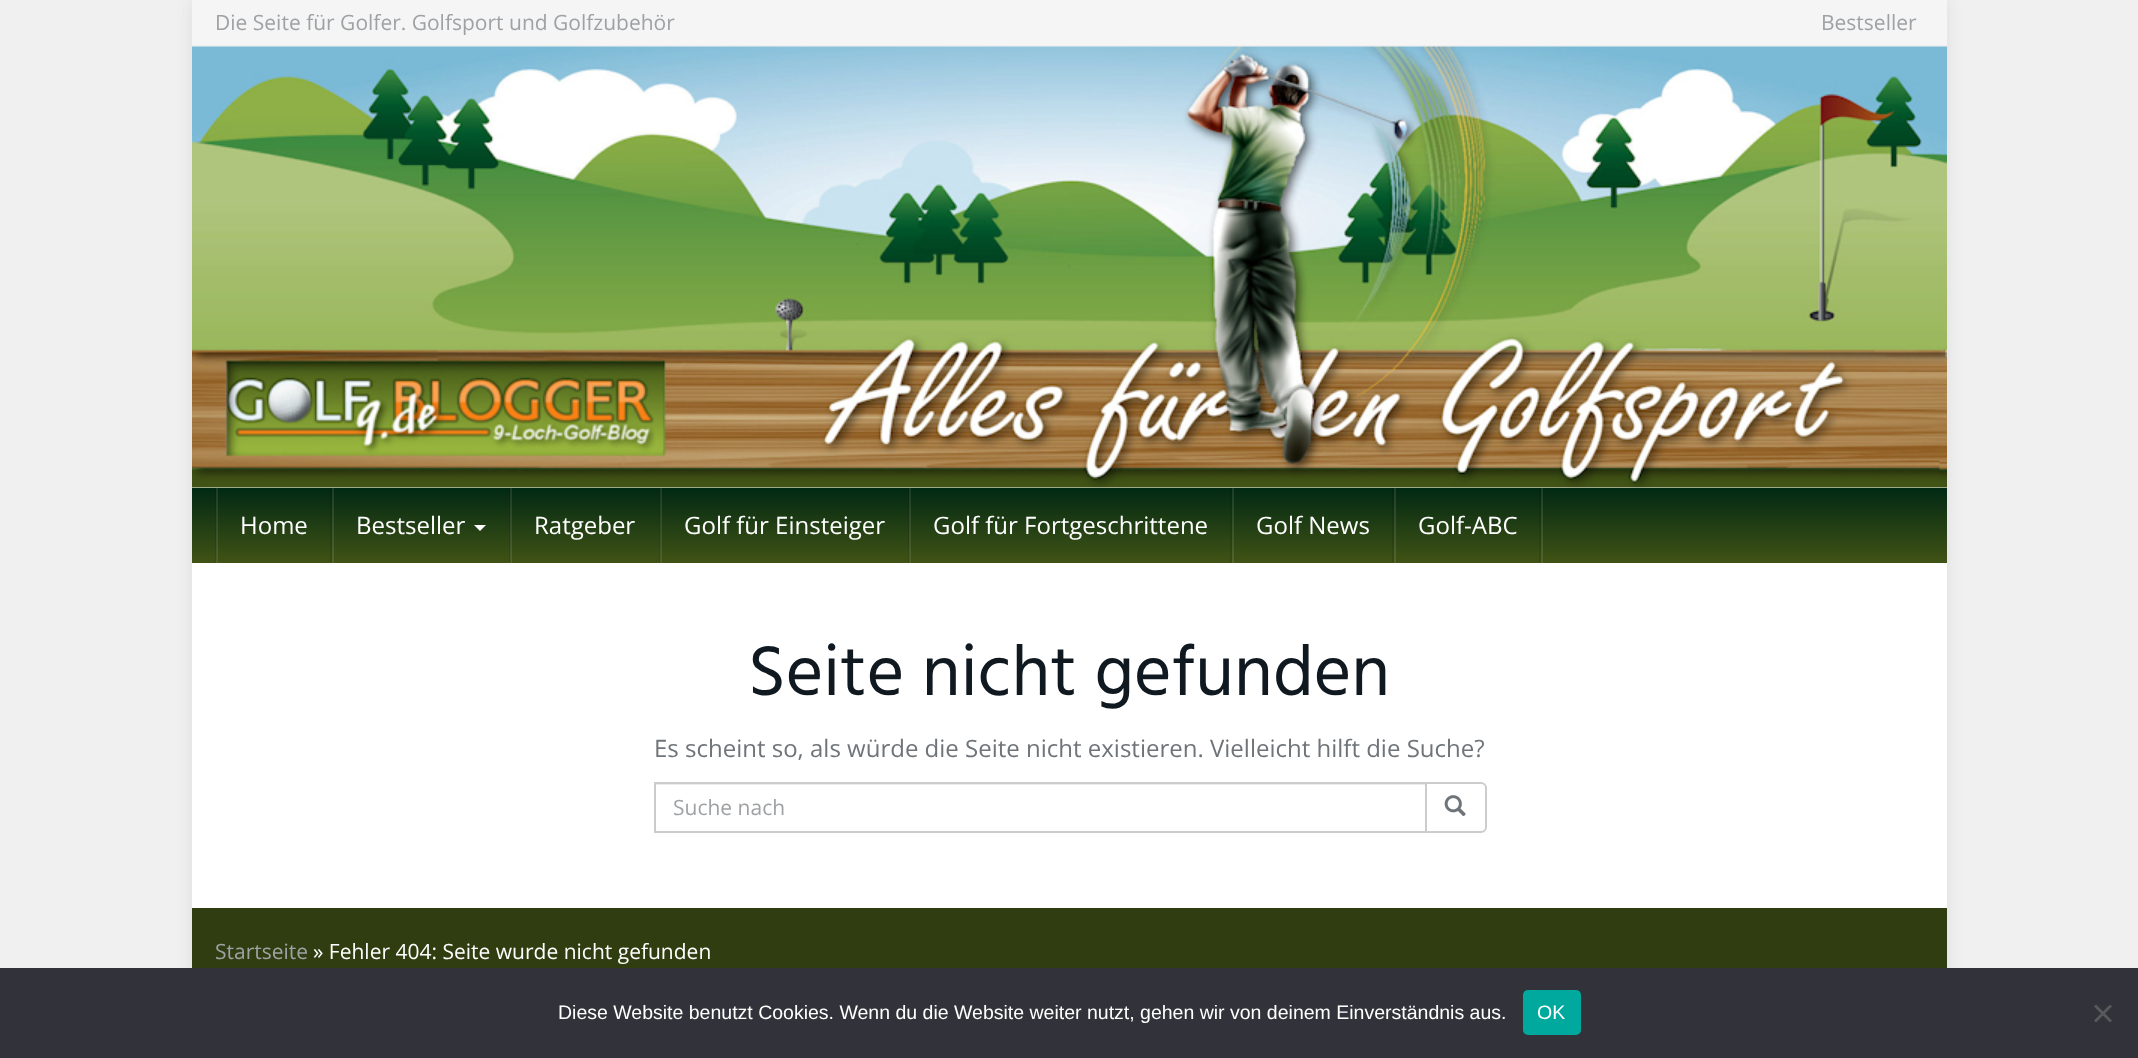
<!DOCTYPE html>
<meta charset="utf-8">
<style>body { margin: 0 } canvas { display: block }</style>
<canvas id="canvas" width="2138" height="1058"></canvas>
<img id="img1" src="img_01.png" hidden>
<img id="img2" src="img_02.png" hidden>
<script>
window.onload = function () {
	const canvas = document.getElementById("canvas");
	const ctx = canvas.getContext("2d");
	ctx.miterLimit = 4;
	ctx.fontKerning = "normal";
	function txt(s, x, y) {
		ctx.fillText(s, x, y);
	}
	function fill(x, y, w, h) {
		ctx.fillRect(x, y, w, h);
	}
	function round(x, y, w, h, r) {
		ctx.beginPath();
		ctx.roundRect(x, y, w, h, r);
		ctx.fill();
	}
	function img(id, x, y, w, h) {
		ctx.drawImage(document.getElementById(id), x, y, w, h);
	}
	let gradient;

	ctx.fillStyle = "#F0F0F0";
	fill(0, 0, 2138, 1058);
	ctx.fillStyle = "#DDDDDD";
	ctx.filter = "blur(7.5px)";
	ctx.beginPath();
	ctx.rect(192, 0, 1755, 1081);
	ctx.fill();
	ctx.filter = "none";
	ctx.fillStyle = "#FFFFFF";
	fill(192, 487, 1755, 421);
	ctx.fillStyle = "#F5F5F5";
	fill(192, 0, 1755, 45);
	ctx.fillStyle = "#F0F0F0";
	fill(192, 45, 1755, 2);
	img("img1", 192, 46, 1755, 442);
	gradient = ctx.createLinearGradient(1070, 487, 1070, 563);
	gradient.addColorStop(0, "#002813");
	gradient.addColorStop(1, "#415315");
	ctx.fillStyle = gradient;
	fill(192, 488, 1755, 75);
	gradient = ctx.createLinearGradient(1070, 487, 1070, 563);
	gradient.addColorStop(0, "#1A3E2B");
	gradient.addColorStop(1, "#54642C");
	ctx.fillStyle = gradient;
	fill(1394, 488, 2, 75);
	gradient = ctx.createLinearGradient(1070, 487, 1070, 563);
	gradient.addColorStop(0, "#002411");
	gradient.addColorStop(1, "#3B4B13");
	ctx.fillStyle = gradient;
	fill(1539, 488, 2, 75);
	gradient = ctx.createLinearGradient(1070, 487, 1070, 563);
	gradient.addColorStop(0, "#1A3E2B");
	gradient.addColorStop(1, "#54642C");
	ctx.fillStyle = gradient;
	fill(1232, 488, 2, 75);
	gradient = ctx.createLinearGradient(1070, 487, 1070, 563);
	gradient.addColorStop(0, "#002411");
	gradient.addColorStop(1, "#3B4B13");
	ctx.fillStyle = gradient;
	fill(1392, 488, 2, 75);
	gradient = ctx.createLinearGradient(1070, 487, 1070, 563);
	gradient.addColorStop(0, "#1A3E2B");
	gradient.addColorStop(1, "#54642C");
	ctx.fillStyle = gradient;
	fill(910, 488, 1, 75);
	gradient = ctx.createLinearGradient(1070, 487, 1070, 563);
	gradient.addColorStop(0, "#002411");
	gradient.addColorStop(1, "#3B4B13");
	ctx.fillStyle = gradient;
	fill(1230, 488, 2, 75);
	gradient = ctx.createLinearGradient(1070, 487, 1070, 563);
	gradient.addColorStop(0, "#1A3E2B");
	gradient.addColorStop(1, "#54642C");
	ctx.fillStyle = gradient;
	fill(661, 488, 1, 75);
	gradient = ctx.createLinearGradient(1070, 487, 1070, 563);
	gradient.addColorStop(0, "#002411");
	gradient.addColorStop(1, "#3B4B13");
	ctx.fillStyle = gradient;
	fill(908, 488, 1, 75);
	gradient = ctx.createLinearGradient(1070, 487, 1070, 563);
	gradient.addColorStop(0, "#1A3A29");
	gradient.addColorStop(1, "#4F5D2B");
	ctx.fillStyle = gradient;
	fill(909, 488, 1, 75);
	gradient = ctx.createLinearGradient(1070, 487, 1070, 563);
	gradient.addColorStop(0, "#1A3E2B");
	gradient.addColorStop(1, "#54642C");
	ctx.fillStyle = gradient;
	fill(511, 488, 1, 75);
	gradient = ctx.createLinearGradient(1070, 487, 1070, 563);
	gradient.addColorStop(0, "#002411");
	gradient.addColorStop(1, "#3B4B13");
	ctx.fillStyle = gradient;
	fill(659, 488, 1, 75);
	gradient = ctx.createLinearGradient(1070, 487, 1070, 563);
	gradient.addColorStop(0, "#1A3A29");
	gradient.addColorStop(1, "#4F5D2B");
	ctx.fillStyle = gradient;
	fill(660, 488, 1, 75);
	gradient = ctx.createLinearGradient(1070, 487, 1070, 563);
	gradient.addColorStop(0, "#1A3E2B");
	gradient.addColorStop(1, "#54642C");
	ctx.fillStyle = gradient;
	fill(332, 488, 2, 75);
	gradient = ctx.createLinearGradient(1070, 487, 1070, 563);
	gradient.addColorStop(0, "#002411");
	gradient.addColorStop(1, "#3B4B13");
	ctx.fillStyle = gradient;
	fill(509, 488, 1, 75);
	gradient = ctx.createLinearGradient(1070, 487, 1070, 563);
	gradient.addColorStop(0, "#1A3A29");
	gradient.addColorStop(1, "#4F5D2B");
	ctx.fillStyle = gradient;
	fill(510, 488, 1, 75);
	gradient = ctx.createLinearGradient(1070, 487, 1070, 563);
	gradient.addColorStop(0, "#1A3E2B");
	gradient.addColorStop(1, "#54642C");
	ctx.fillStyle = gradient;
	fill(217, 488, 1, 75);
	gradient = ctx.createLinearGradient(1070, 487, 1070, 563);
	gradient.addColorStop(0, "#002411");
	gradient.addColorStop(1, "#3B4B13");
	ctx.fillStyle = gradient;
	fill(330, 488, 2, 75);
	fill(215, 488, 1, 75);
	gradient = ctx.createLinearGradient(1070, 487, 1070, 563);
	gradient.addColorStop(0, "#1A3A29");
	gradient.addColorStop(1, "#4F5D2B");
	ctx.fillStyle = gradient;
	fill(216, 488, 1, 75);
	gradient = ctx.createLinearGradient(1070, 487, 1070, 563);
	gradient.addColorStop(0, "#1A3E2B");
	gradient.addColorStop(1, "#54642C");
	ctx.fillStyle = gradient;
	fill(1541, 488, 2, 75);
	ctx.fillStyle = "#FFFFFF";
	ctx.beginPath();
	ctx.moveTo(474, 525);
	ctx.lineTo(486, 525);
	ctx.lineTo(480, 531);
	ctx.closePath();
	ctx.fill();
	ctx.fillStyle = "#ECECEC";
	fill(656, 784, 769, 1);
	ctx.strokeStyle = "#CCCCCC";
	ctx.lineWidth = 2;
	ctx.strokeRect(655, 783, 771, 49);
	ctx.fillStyle = "#FFFFFF";
	ctx.beginPath();
	ctx.roundRect(1426, 783, 60, 49, [0, 5, 5, 0]);
	ctx.fill();
	ctx.stroke();
	img("img2", 1444, 795, 22, 22);
	ctx.fillStyle = "#303D10";
	fill(192, 908, 1755, 60);
	ctx.fillStyle = "#32323A";
	fill(0, 968, 2138, 90);
	ctx.fillStyle = "#00A99D";
	round(1523, 990, 58, 45, 5);
	ctx.fillStyle = "#59595D";
	ctx.beginPath();
	ctx.moveTo(2110, 1004.5);
	ctx.lineTo(2112, 1006.5);
	ctx.lineTo(2096, 1022.5);
	ctx.lineTo(2094, 1020.5);
	ctx.closePath();
	ctx.fill();
	ctx.beginPath();
	ctx.moveTo(2094, 1006.5);
	ctx.lineTo(2096, 1004.5);
	ctx.lineTo(2112, 1020.5);
	ctx.lineTo(2110, 1022.5);
	ctx.closePath();
	ctx.fill();
	ctx.font = "21px Open Sans";
	ctx.fillStyle = "#9FA2A5";
	txt("Die Seite für Golfer. Golfsport und Golfzubehör", 215, 30);
	txt("Bestseller", 1821, 30);
	ctx.font = "24px Open Sans";
	ctx.fillStyle = "#FFFFFF";
	txt("Home", 240, 534);
	txt("Bestseller", 356, 534);
	txt("Ratgeber", 534, 534);
	txt("Golf für Einsteiger", 684, 534);
	txt("Golf für Fortgeschrittene", 933, 534);
	txt("Golf News", 1256, 534);
	txt("Golf-ABC", 1418, 534);
	ctx.font = "72px Hind";
	ctx.fillStyle = "#101820";
	txt("Seite nicht gefunden", 748, 695);
	ctx.font = "24px Open Sans";
	ctx.fillStyle = "#6F7479";
	txt("Es scheint so, als würde die Seite nicht existieren. Vielleicht hilft die Suche?", 654, 757);
	ctx.font = "21px Open Sans";
	ctx.fillStyle = "#9FA2A5";
	txt("Suche nach", 673, 815);
	txt("Startseite", 215, 959);
	ctx.fillStyle = "#FFFFFF";
	txt("» Fehler 404: Seite wurde nicht gefunden", 313, 959);
	ctx.font = "19.5px Liberation Sans";
	txt("Diese Website benutzt Cookies. Wenn du die Website weiter nutzt, gehen wir von deinem Einverständnis aus.", 558, 1019);
	txt("OK", 1537, 1019);
};
</script>
